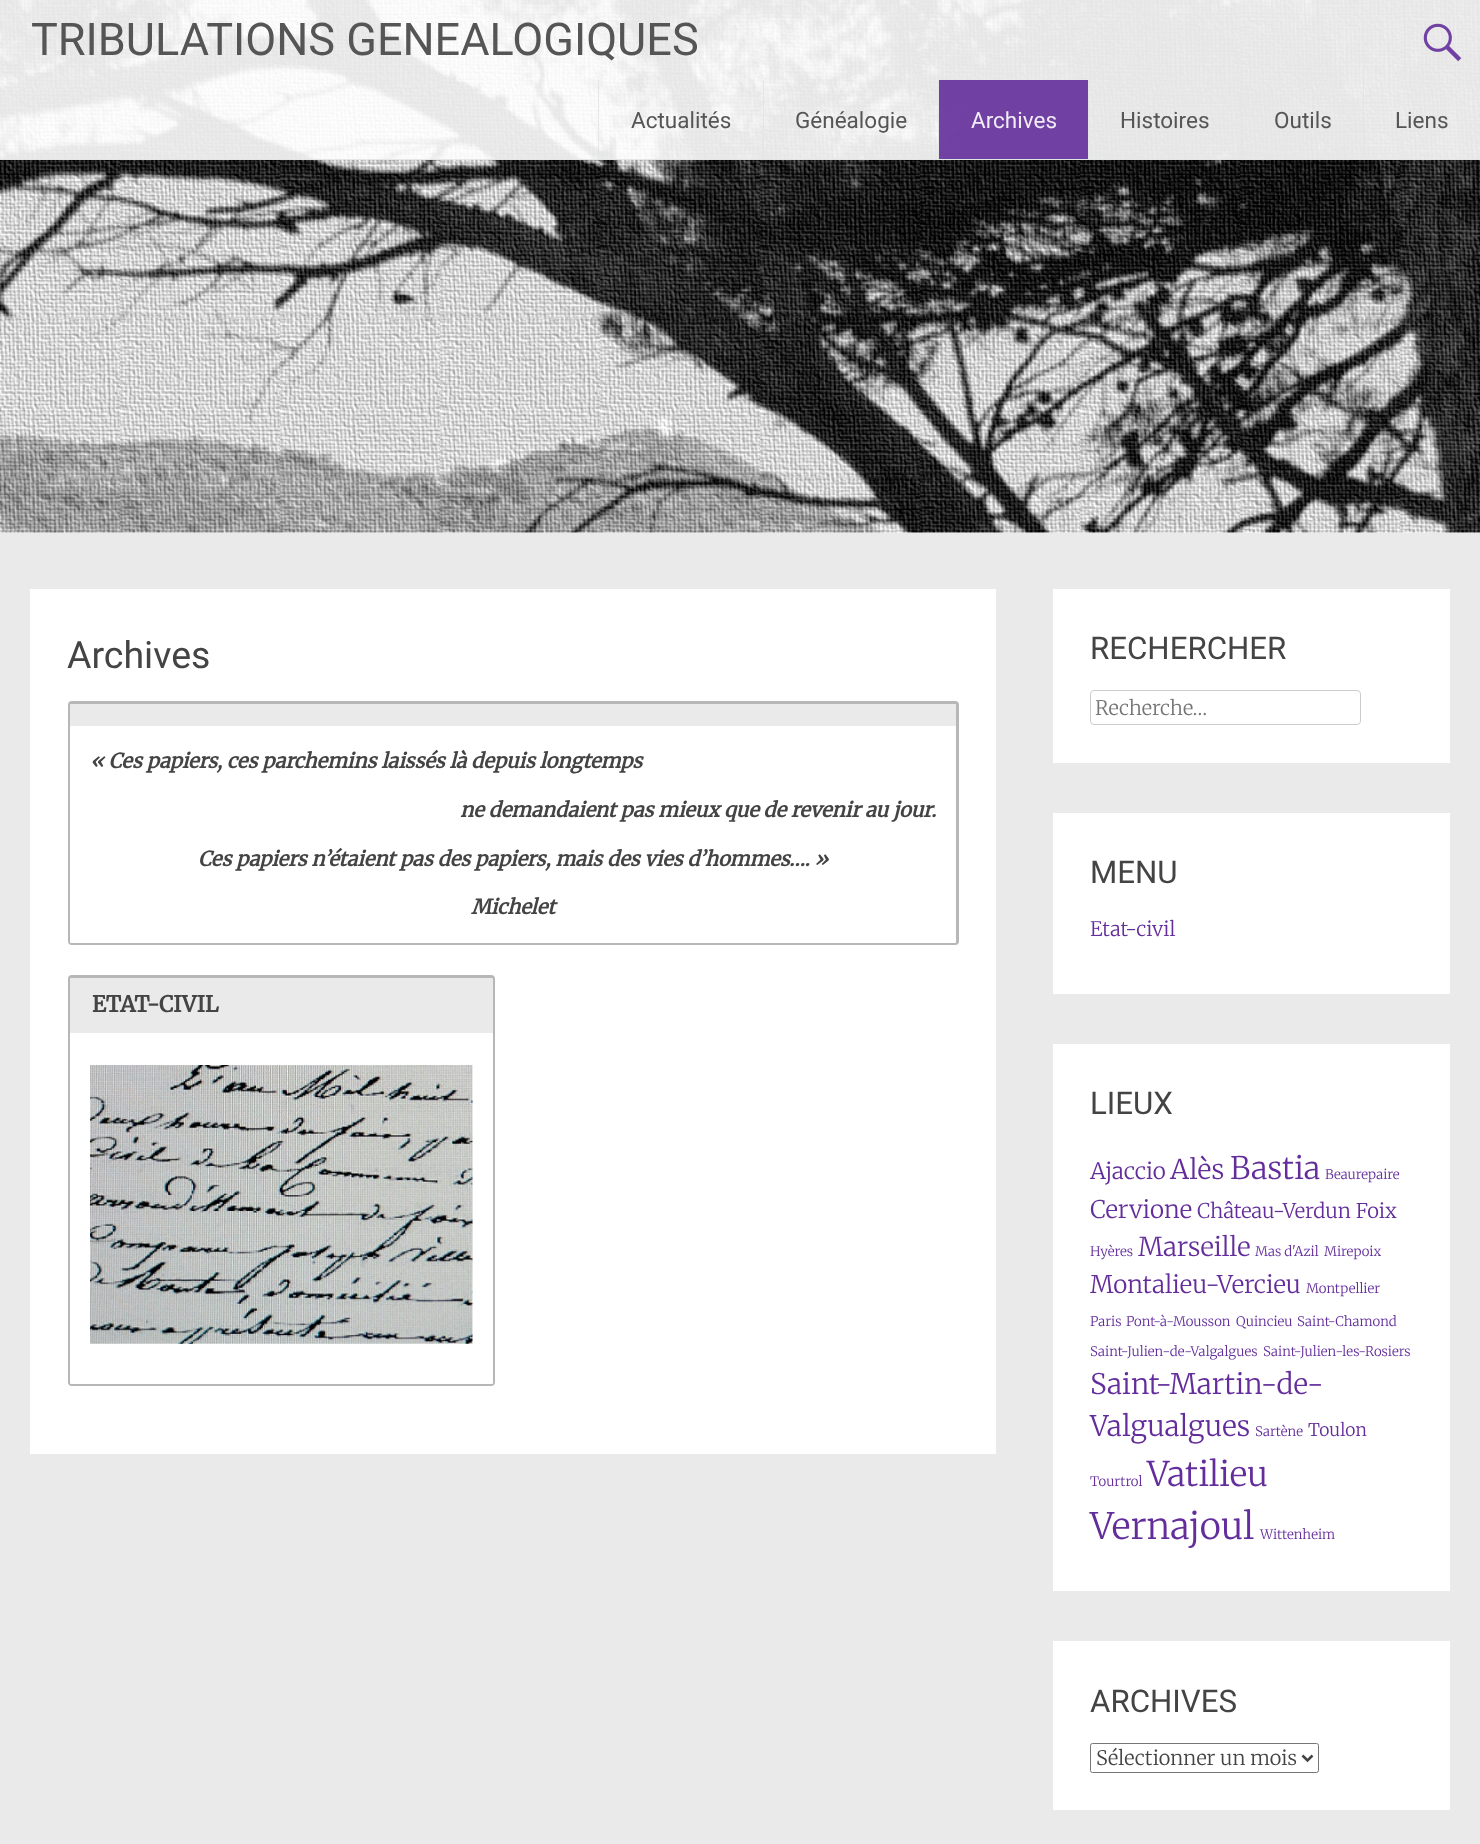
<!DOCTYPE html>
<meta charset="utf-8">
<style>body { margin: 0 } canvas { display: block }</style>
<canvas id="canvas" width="1480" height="1844"></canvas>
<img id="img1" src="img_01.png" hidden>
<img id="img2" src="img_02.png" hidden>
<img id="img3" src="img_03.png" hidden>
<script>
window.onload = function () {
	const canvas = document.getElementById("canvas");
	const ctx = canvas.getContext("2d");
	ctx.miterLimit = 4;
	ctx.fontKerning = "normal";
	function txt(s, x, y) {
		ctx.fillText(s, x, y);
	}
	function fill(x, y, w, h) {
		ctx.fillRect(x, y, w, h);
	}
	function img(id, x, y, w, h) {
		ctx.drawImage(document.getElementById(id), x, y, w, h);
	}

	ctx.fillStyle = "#FFFFFF";
	fill(0, 0, 1480, 1844);
	img("img1", 0, 0, 1480, 533);
	ctx.fillStyle = "rgba(255, 255, 255, 0.9)";
	fill(0, 0, 1480, 160);
	ctx.fillStyle = "rgba(225, 228, 230, 0.9)";
	fill(0, 159, 1480, 1);
	fill(1404, 0, 1, 80);
	img("img2", 1423, 23, 39, 39);
	fill(598, 80, 1, 79);
	fill(763, 80, 1, 79);
	fill(938, 80, 1, 79);
	ctx.fillStyle = "rgba(99, 46, 155, 0.9)";
	fill(939, 80, 149, 79);
	ctx.fillStyle = "rgba(225, 228, 230, 0.9)";
	fill(1088, 80, 1, 79);
	fill(1241, 80, 1, 79);
	fill(1363, 80, 1, 79);
	ctx.fillStyle = "#EAEAEA";
	fill(0, 533, 1480, 1311);
	ctx.fillStyle = "#FFFFFF";
	fill(30, 589, 966, 865);
	ctx.beginPath();
	ctx.roundRect(69.5, 702.5, 888, 241, 2.5);
	ctx.strokeStyle = "#B7B7B7";
	ctx.lineWidth = 3;
	ctx.stroke();
	ctx.fillStyle = "#EAEAEA";
	ctx.beginPath();
	ctx.roundRect(70, 704, 886, 22, [1, 1, 0, 0]);
	ctx.fill();
	ctx.fillStyle = "#FFFFFF";
	ctx.beginPath();
	ctx.roundRect(70, 726, 886, 217, [0, 0, 1, 1]);
	ctx.fill();
	ctx.beginPath();
	ctx.roundRect(69.5, 976.5, 424, 408, 2.5);
	ctx.stroke();
	ctx.fillStyle = "#EAEAEA";
	ctx.beginPath();
	ctx.roundRect(70, 978, 423, 55, [1, 1, 0, 0]);
	ctx.fill();
	ctx.fillStyle = "#FFFFFF";
	ctx.beginPath();
	ctx.roundRect(70, 1033, 423, 351, [0, 0, 1, 1]);
	ctx.fill();
	img("img3", 90, 1065, 383, 279);
	fill(1053, 589, 397, 174);
	ctx.beginPath();
	ctx.roundRect(1090.5, 690.5, 270, 34, 3.5);
	ctx.strokeStyle = "#CCCCCC";
	ctx.lineWidth = 1;
	ctx.stroke();
	fill(1053, 813, 397, 181);
	fill(1053, 1044, 397, 547);
	fill(1053, 1641, 397, 169);
	ctx.beginPath();
	ctx.roundRect(1090.5, 1743.5, 228, 29, 2);
	ctx.strokeStyle = "#767676";
	ctx.stroke();
	ctx.beginPath();
	ctx.moveTo(1302.5, 1755.5);
	ctx.lineTo(1307.5, 1760.5);
	ctx.lineTo(1312.5, 1755.5);
	ctx.strokeStyle = "#444444";
	ctx.lineWidth = 2.5;
	ctx.stroke();
	ctx.font = "45px Roboto";
	ctx.fillStyle = "#555555";
	txt("TRIBULATIONS GENEALOGIQUES", 31, 55);
	ctx.font = "22.5px Roboto";
	txt("Actualités", 631, 128);
	txt("Généalogie", 795, 128);
	ctx.fillStyle = "#F1ECF6";
	txt("Archives", 971, 128);
	ctx.fillStyle = "#555555";
	txt("Histoires", 1120, 128);
	txt("Outils", 1274, 128);
	txt("Liens", 1395, 128);
	ctx.font = "37.5px Roboto";
	ctx.fillStyle = "#444444";
	txt("Archives", 67, 668);
	ctx.font = "italic bold 20px Merriweather";
	txt("« Ces papiers, ces parchemins laissés là depuis longtemps", 90, 768);
	txt("ne demandaient pas mieux que de revenir au jour.", 460, 817);
	txt("Ces papiers n’étaient pas des papiers, mais des vies d’hommes…. »", 198, 866);
	txt("Michelet", 471, 914);
	ctx.font = "bold 22px Merriweather";
	txt("ETAT-CIVIL", 92, 1012);
	ctx.font = "31.25px Roboto";
	txt("RECHERCHER", 1090, 659);
	ctx.font = "300 20px Merriweather";
	ctx.fillStyle = "#757575";
	txt("Recherche…", 1095, 715);
	ctx.font = "31.25px Roboto";
	ctx.fillStyle = "#444444";
	txt("MENU", 1090, 883);
	ctx.font = "300 20px Merriweather";
	ctx.fillStyle = "#632E9B";
	txt("Etat-civil", 1090, 936);
	ctx.font = "31.25px Roboto";
	ctx.fillStyle = "#444444";
	txt("LIEUX", 1090, 1114);
	ctx.font = "300 22.5px Merriweather";
	ctx.fillStyle = "#632E9B";
	txt("Ajaccio", 1090, 1179);
	ctx.font = "300 27px Merriweather";
	txt("Alès", 1170, 1179);
	ctx.font = "300 31px Merriweather";
	txt("Bastia", 1230, 1179);
	ctx.font = "300 13.3px Merriweather";
	txt("Beaurepaire", 1325, 1179);
	ctx.font = "300 24.25px Merriweather";
	txt("Cervione", 1090, 1218);
	ctx.font = "300 20.25px Merriweather";
	txt("Château-Verdun Foix", 1197, 1218);
	ctx.font = "300 13.3px Merriweather";
	txt("Hyères", 1090, 1256);
	ctx.font = "300 26px Merriweather";
	txt("Marseille", 1138, 1256);
	ctx.font = "300 13.3px Merriweather";
	txt("Mas d'Azil", 1255, 1256);
	txt("Mirepoix", 1324, 1256);
	ctx.font = "300 24.25px Merriweather";
	txt("Montalieu-Vercieu", 1090, 1293);
	ctx.font = "300 13.3px Merriweather";
	txt("Montpellier", 1306, 1293);
	txt("Paris", 1090, 1326);
	txt("Pont-à-Mousson", 1126, 1326);
	txt("Quincieu", 1236, 1326);
	txt("Saint-Chamond", 1297, 1326);
	txt("Saint-Julien-de-Valgalgues", 1090, 1356);
	txt("Saint-Julien-les-Rosiers", 1263, 1356);
	ctx.font = "300 28.25px Merriweather";
	txt("Saint-Martin-de-", 1090, 1394);
	txt("Valgualgues", 1090, 1436);
	ctx.font = "300 13.3px Merriweather";
	txt("Sartène", 1255, 1436);
	ctx.font = "300 17.5px Merriweather";
	txt("Toulon", 1308, 1436);
	ctx.font = "300 13.3px Merriweather";
	txt("Tourtrol", 1090, 1486);
	ctx.font = "300 34px Merriweather";
	txt("Vatilieu", 1147, 1486);
	ctx.font = "300 36.5px Merriweather";
	txt("Vernajoul", 1090, 1539);
	ctx.font = "300 13.3px Merriweather";
	txt("Wittenheim", 1260, 1539);
	ctx.font = "31.25px Roboto";
	ctx.fillStyle = "#444444";
	txt("ARCHIVES", 1090, 1712);
	ctx.font = "300 20px Merriweather";
	txt("Sélectionner un mois", 1096, 1765);
};
</script>
